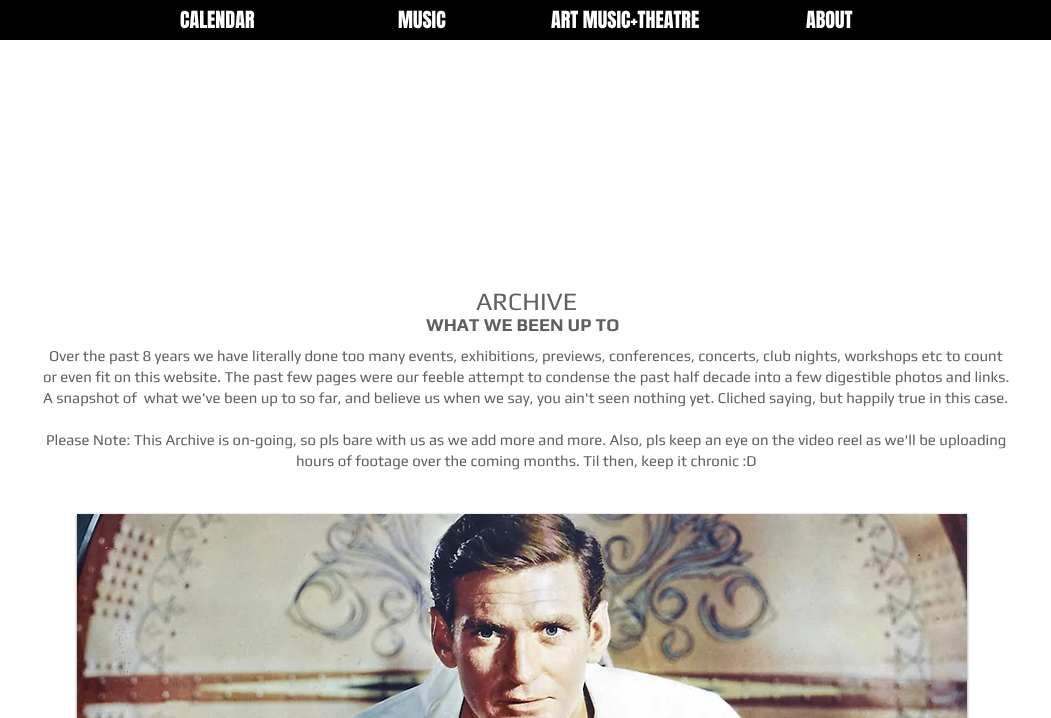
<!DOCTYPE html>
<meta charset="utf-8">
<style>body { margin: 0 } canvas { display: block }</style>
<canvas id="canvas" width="1051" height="718"></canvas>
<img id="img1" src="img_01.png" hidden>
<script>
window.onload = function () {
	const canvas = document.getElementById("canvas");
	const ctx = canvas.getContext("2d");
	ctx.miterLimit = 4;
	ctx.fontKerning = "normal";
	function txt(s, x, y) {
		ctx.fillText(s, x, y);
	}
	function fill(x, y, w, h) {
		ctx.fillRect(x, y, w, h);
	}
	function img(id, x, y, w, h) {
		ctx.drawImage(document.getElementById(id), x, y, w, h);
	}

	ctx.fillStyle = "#FFFFFF";
	fill(0, 0, 1051, 718);
	ctx.fillStyle = "#000000";
	fill(0, 0, 1051, 40);
	ctx.fillStyle = "rgba(0, 0, 0, 0.5)";
	ctx.filter = "blur(1.5px)";
	ctx.beginPath();
	ctx.rect(77, 515, 890, 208);
	ctx.fill();
	ctx.filter = "none";
	img("img1", 77, 514, 890, 204);
	ctx.font = "20px Anton";
	ctx.fillStyle = "#FFFFFF";
	txt("CALENDAR", 180, 28);
	txt("MUSIC", 398, 28);
	txt("ART MUSIC+THEATRE", 551, 28);
	txt("ABOUT", 806, 28);
	ctx.font = "25px Play";
	ctx.fillStyle = "#606060";
	txt("ARCHIVE", 476, 310);
	ctx.font = "bold 18px Play";
	txt("WHAT WE BEEN UP TO", 426, 331);
	ctx.font = "15px Play";
	txt("Over the past 8 years we have literally done too many events, exhibitions, previews, conferences, concerts, club nights, workshops etc to count", 49, 361);
	txt("or even fit on this website. The past few pages were our feeble attempt to condense the past half decade into a few digestible photos and links.", 43, 382);
	txt("A snapshot of  what we've been up to so far, and believe us when we say, you ain't seen nothing yet. Cliched saying, but happily true in this case.", 43, 403);
	txt("Please Note: This Archive is on-going, so pls bare with us as we add more and more. Also, pls keep an eye on the video reel as we'll be uploading", 46, 445);
	txt("hours of footage over the coming months. Til then, keep it chronic :D", 296, 466);
};
</script>
